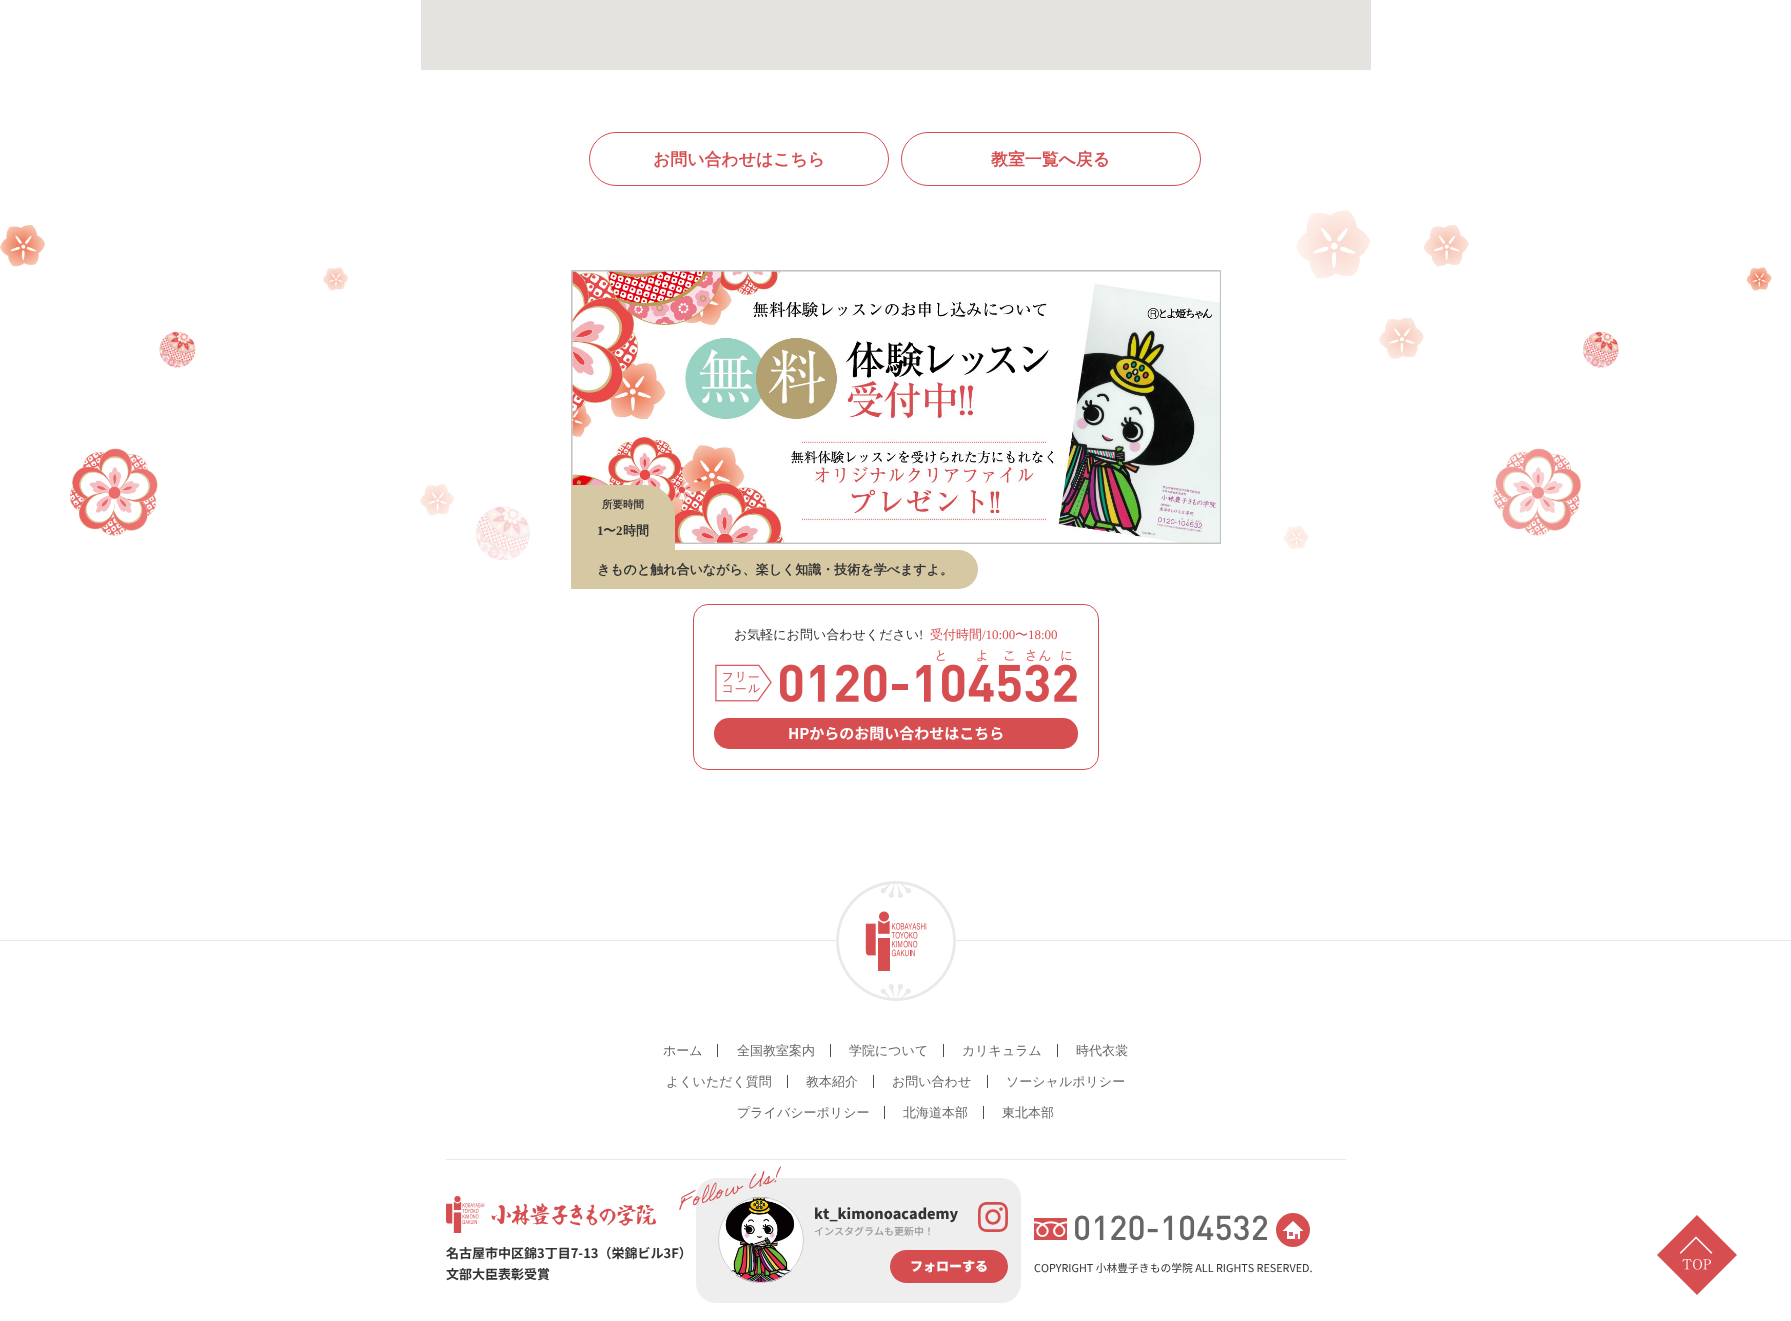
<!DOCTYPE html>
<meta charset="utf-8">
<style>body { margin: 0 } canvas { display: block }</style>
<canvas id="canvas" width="1791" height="1321"></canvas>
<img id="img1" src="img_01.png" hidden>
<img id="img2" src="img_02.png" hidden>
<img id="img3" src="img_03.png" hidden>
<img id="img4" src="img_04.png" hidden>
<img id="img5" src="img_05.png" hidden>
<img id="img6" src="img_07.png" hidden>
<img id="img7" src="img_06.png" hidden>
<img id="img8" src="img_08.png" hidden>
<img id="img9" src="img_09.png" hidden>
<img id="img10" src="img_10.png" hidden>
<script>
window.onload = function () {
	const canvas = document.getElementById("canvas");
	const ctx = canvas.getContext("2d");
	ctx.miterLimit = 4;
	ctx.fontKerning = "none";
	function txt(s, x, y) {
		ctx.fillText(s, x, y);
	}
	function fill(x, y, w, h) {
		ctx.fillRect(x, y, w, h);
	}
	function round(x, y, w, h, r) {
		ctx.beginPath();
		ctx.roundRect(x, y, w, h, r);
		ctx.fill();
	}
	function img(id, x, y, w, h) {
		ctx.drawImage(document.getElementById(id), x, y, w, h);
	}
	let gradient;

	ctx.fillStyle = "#FFFFFF";
	fill(0, 0, 1791, 1321);
	ctx.fillStyle = "#E5E3DF";
	fill(421, 0, 950, 70);
	ctx.beginPath();
	ctx.roundRect(589.5, 132.5, 299, 53, 26.5);
	ctx.strokeStyle = "#D74E51";
	ctx.stroke();
	ctx.beginPath();
	ctx.roundRect(901.5, 132.5, 299, 53, 26.5);
	ctx.stroke();
	img("img1", 0, 210, 1772, 350);
	gradient = ctx.createLinearGradient(0, 407, 1791, 407);
	gradient.addColorStop(0, "rgba(255, 255, 255, 0)");
	gradient.addColorStop(0.35, "#FFFFFF");
	gradient.addColorStop(0.65, "#FFFFFF");
	gradient.addColorStop(1, "rgba(255, 255, 255, 0)");
	ctx.fillStyle = gradient;
	fill(14, 210, 1757, 350);
	ctx.strokeStyle = "#C2C2C2";
	ctx.strokeRect(571.5, 270.5, 649, 273);
	img("img2", 572, 271, 648, 272);
	ctx.fillStyle = "#D5C8A3";
	ctx.beginPath();
	ctx.roundRect(571, 485, 104, 65, [0, 30, 0, 0]);
	ctx.fill();
	ctx.beginPath();
	ctx.roundRect(571, 550, 407, 39, [0, 19.5, 19.5, 0]);
	ctx.fill();
	ctx.beginPath();
	ctx.roundRect(693.5, 604.5, 405, 165, 14.5);
	ctx.strokeStyle = "#D74E51";
	ctx.stroke();
	img("img3", 715, 650, 362, 52);
	ctx.fillStyle = "#D74E51";
	round(714, 718, 364, 31, 15);
	ctx.fillStyle = "#E9E9E9";
	fill(0, 940, 1791, 1);
	img("img4", 836, 881, 120, 120);
	ctx.fillStyle = "#4D4D4D";
	fill(717, 1044, 1, 13);
	fill(830, 1044, 1, 13);
	fill(943, 1044, 1, 13);
	fill(1057, 1044, 1, 13);
	fill(787, 1075, 1, 13);
	fill(873, 1075, 1, 13);
	fill(987, 1075, 1, 13);
	fill(884, 1106, 1, 13);
	fill(983, 1106, 1, 13);
	ctx.fillStyle = "#E9E9E9";
	fill(446, 1159, 900, 1);
	img("img5", 446, 1196, 210, 37);
	ctx.fillStyle = "#EEEEEE";
	round(696, 1178, 325, 125, 20);
	img("img6", 718, 1197, 86, 86);
	ctx.beginPath();
	ctx.arc(761, 1240, 42.5, 0, Math.PI * 2);
	ctx.strokeStyle = "#CCCCCC";
	ctx.stroke();
	img("img7", 679, 1166, 102, 44);
	img("img8", 978, 1202, 30, 30);
	ctx.fillStyle = "#D64D4F";
	round(890, 1250, 118, 33, 16.5);
	img("img9", 1034, 1218, 33, 22);
	ctx.fillStyle = "#D74E51";
	ctx.beginPath();
	ctx.arc(1293, 1230, 17, 0, Math.PI * 2);
	ctx.fill();
	ctx.fillStyle = "#FFFFFF";
	ctx.beginPath();
	ctx.moveTo(1282.5, 1231);
	ctx.lineTo(1293, 1221);
	ctx.lineTo(1303.5, 1231);
	ctx.closePath();
	ctx.fill();
	fill(1287, 1231, 13, 8);
	ctx.fillStyle = "#DB5B7E";
	fill(1289, 1232, 4, 4);
	fill(1295, 1234, 3, 6);
	img("img10", 1657, 1215, 80, 80);
	ctx.font = "bold 16.9px WenQuanYi Zen Hei";
	ctx.fillStyle = "#D74E51";
	txt("お問い合わせはこちら", 653, 165);
	txt("教室一覧へ戻る", 991, 165);
	ctx.font = "bold 10.5px WenQuanYi Zen Hei";
	ctx.fillStyle = "#333333";
	txt("所要時間", 602, 508);
	ctx.font = "bold 13px Liberation Serif";
	txt("1", 597, 535);
	ctx.font = "bold 13px WenQuanYi Zen Hei";
	txt("〜", 603, 535);
	ctx.font = "bold 13px Liberation Serif";
	txt("2", 616, 535);
	ctx.font = "bold 13px WenQuanYi Zen Hei";
	txt("時間", 623, 535);
	txt("きものと触れ合いながら、楽しく知識・技術を学べますよ。", 597, 574);
	ctx.font = "500 13px WenQuanYi Zen Hei";
	txt("お気軽にお問い合わせください", 734, 639);
	ctx.font = "13px Liberation Serif";
	txt("!", 919, 639);
	ctx.font = "500 13px WenQuanYi Zen Hei";
	ctx.fillStyle = "#D74E51";
	txt("受付時間", 930, 639);
	ctx.font = "13px Liberation Serif";
	txt("/10:00", 982, 639);
	ctx.font = "500 13px WenQuanYi Zen Hei";
	txt("〜", 1015, 639);
	ctx.font = "13px Liberation Serif";
	txt("18:00", 1028, 639);
	ctx.font = "bold 15px Noto Sans JP";
	ctx.fillStyle = "#FFFFFF";
	txt("HPからのお問い合わせはこちら", 788, 739);
	ctx.font = "500 13px WenQuanYi Zen Hei";
	ctx.fillStyle = "#666666";
	txt("ホーム", 663, 1055);
	txt("全国教室案内", 737, 1055);
	txt("学院について", 849, 1055);
	txt("カリキュラム", 962, 1055);
	txt("時代衣裳", 1076, 1055);
	txt("よくいただく質問", 666, 1086);
	txt("教本紹介", 806, 1086);
	txt("お問い合わせ", 892, 1086);
	txt("ソーシャルポリシー", 1006, 1086);
	txt("プライバシーポリシー", 737, 1117);
	txt("北海道本部", 903, 1117);
	txt("東北本部", 1002, 1117);
	ctx.font = "bold 13px Noto Sans JP";
	ctx.fillStyle = "#333333";
	txt("名古屋市中区錦3丁目7-13（栄錦ビル3F）", 446, 1258);
	txt("文部大臣表彰受賞", 446, 1279);
	ctx.font = "900 14.25px Noto Sans JP";
	txt("kt_kimonoacademy", 814, 1219);
	ctx.font = "500 10px Noto Sans JP";
	ctx.fillStyle = "#999999";
	txt("インスタグラムも更新中！", 814, 1235);
	ctx.font = "900 13px Noto Sans JP";
	ctx.fillStyle = "#FFFFFF";
	txt("フォローする", 910, 1271);
	ctx.font = "500 34px DIN";
	ctx.fillStyle = "#666666";
	txt("0120-104532", 1073, 1240);
	ctx.font = "10.8px Noto Sans JP";
	ctx.fillStyle = "#333333";
	txt("COPYRIGHT 小林豊子きもの学院 ALL RIGHTS RESERVED.", 1034, 1272);
};
</script>
